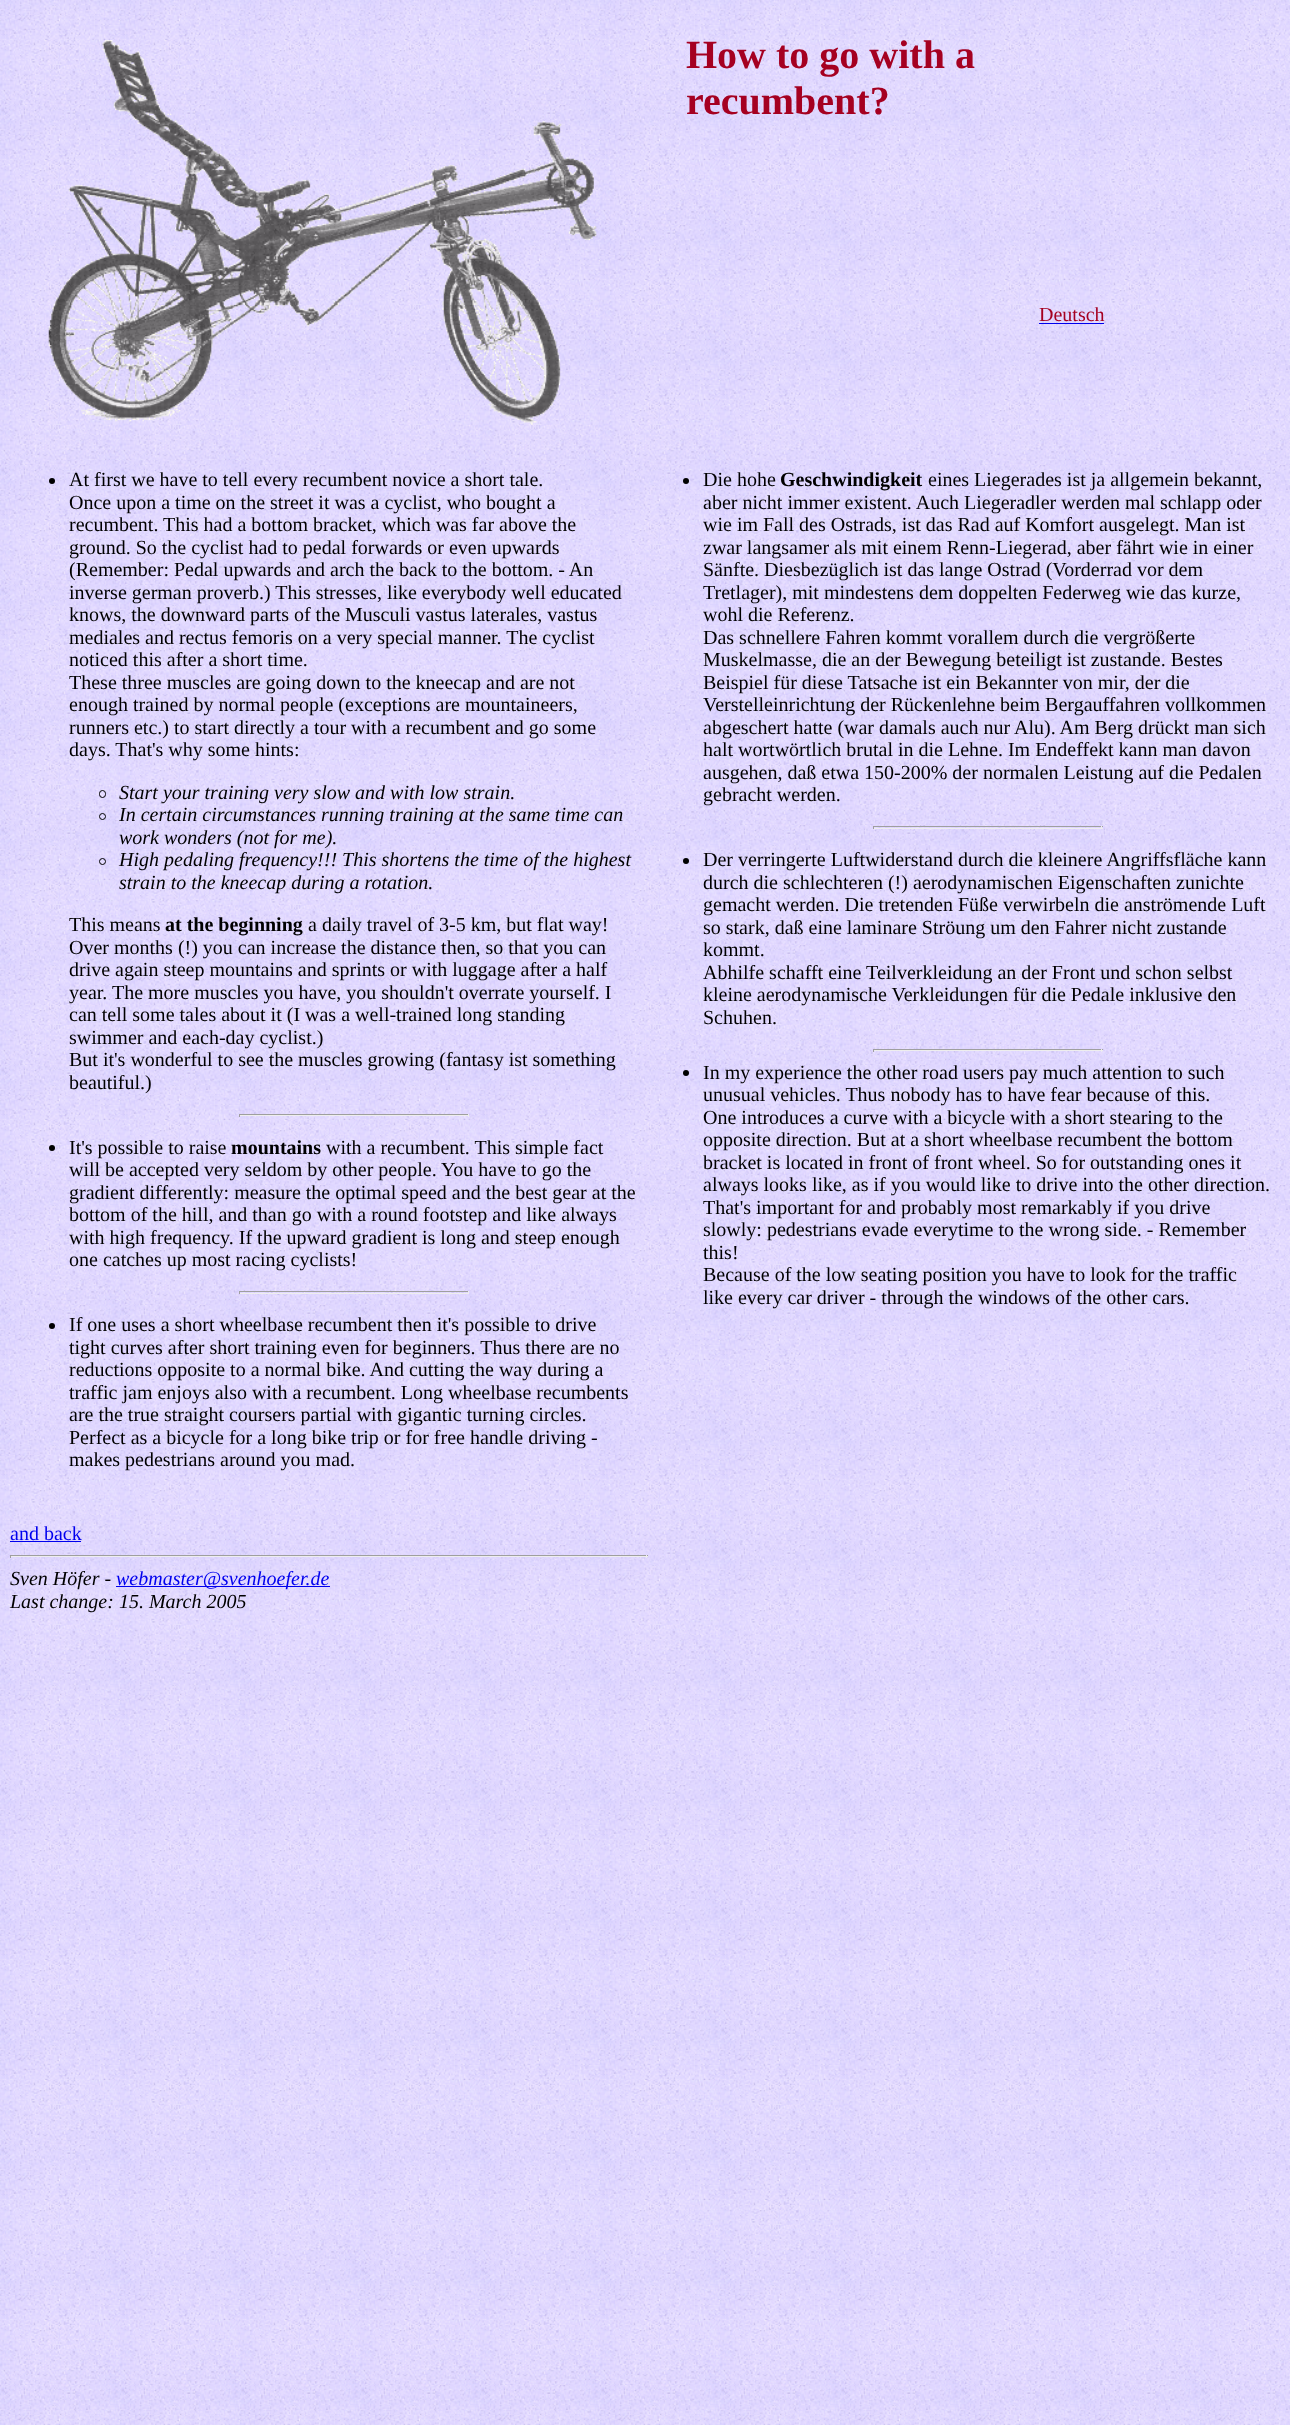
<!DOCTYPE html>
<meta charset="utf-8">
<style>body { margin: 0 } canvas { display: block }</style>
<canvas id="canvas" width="1290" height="2425"></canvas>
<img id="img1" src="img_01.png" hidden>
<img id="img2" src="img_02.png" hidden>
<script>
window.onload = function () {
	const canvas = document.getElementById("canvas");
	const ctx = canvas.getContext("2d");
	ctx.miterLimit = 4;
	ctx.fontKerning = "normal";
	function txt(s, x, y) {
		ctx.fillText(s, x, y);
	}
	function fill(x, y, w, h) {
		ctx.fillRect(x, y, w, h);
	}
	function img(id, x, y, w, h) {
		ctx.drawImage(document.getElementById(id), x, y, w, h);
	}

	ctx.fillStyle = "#FFFFFF";
	fill(0, 0, 1290, 2425);
	img("img1", 0, 0, 1290, 2425);
	img("img2", 48, 40, 549, 385);
	ctx.fillStyle = "#0000EE";
	fill(1039, 323, 65, 1);
	ctx.fillStyle = "#000000";
	ctx.beginPath();
	ctx.arc(52, 481, 3, 0, Math.PI * 2);
	ctx.fill();
	ctx.beginPath();
	ctx.roundRect(99.5, 790.5, 6, 7, 3);
	ctx.strokeStyle = "#000000";
	ctx.stroke();
	ctx.beginPath();
	ctx.arc(102.5, 816.5, 3, 0, Math.PI * 2);
	ctx.stroke();
	ctx.beginPath();
	ctx.arc(102.5, 861.5, 3, 0, Math.PI * 2);
	ctx.stroke();
	ctx.fillStyle = "#9F9F9F";
	fill(239, 1114, 230, 1);
	ctx.fillStyle = "#EEEEEE";
	fill(468, 1114, 1, 3);
	fill(239, 1115, 230, 1);
	ctx.fillStyle = "#9F9F9F";
	fill(239, 1114, 1, 3);
	ctx.fillStyle = "#000000";
	ctx.beginPath();
	ctx.arc(52, 1148, 3, 0, Math.PI * 2);
	ctx.fill();
	ctx.fillStyle = "#9F9F9F";
	fill(239, 1291, 230, 1);
	ctx.fillStyle = "#EEEEEE";
	fill(468, 1291, 1, 3);
	fill(239, 1293, 230, 1);
	ctx.fillStyle = "#9F9F9F";
	fill(239, 1291, 1, 3);
	ctx.fillStyle = "#000000";
	ctx.beginPath();
	ctx.arc(52, 1326, 3, 0, Math.PI * 2);
	ctx.fill();
	ctx.beginPath();
	ctx.arc(686, 481, 3, 0, Math.PI * 2);
	ctx.fill();
	ctx.fillStyle = "#9F9F9F";
	fill(873, 826, 230, 1);
	ctx.fillStyle = "#EEEEEE";
	fill(1101, 826, 1, 3);
	fill(873, 828, 230, 1);
	ctx.fillStyle = "#9F9F9F";
	fill(873, 826, 1, 3);
	ctx.fillStyle = "#000000";
	ctx.beginPath();
	ctx.arc(686, 861, 3, 0, Math.PI * 2);
	ctx.fill();
	ctx.fillStyle = "#9F9F9F";
	fill(873, 1049, 230, 1);
	ctx.fillStyle = "#EEEEEE";
	fill(1101, 1049, 1, 3);
	fill(873, 1050, 230, 1);
	ctx.fillStyle = "#9F9F9F";
	fill(873, 1049, 1, 3);
	ctx.fillStyle = "#000000";
	ctx.beginPath();
	ctx.arc(686, 1073, 3, 0, Math.PI * 2);
	ctx.fill();
	ctx.fillStyle = "#0000EE";
	fill(10, 1541, 71, 1);
	ctx.fillStyle = "#9F9F9F";
	fill(10, 1555, 638, 1);
	ctx.fillStyle = "#EEEEEE";
	fill(646, 1555, 1, 3);
	fill(10, 1556, 638, 1);
	ctx.fillStyle = "#9F9F9F";
	fill(10, 1555, 1, 3);
	ctx.fillStyle = "#0000EE";
	fill(116, 1586, 214, 1);
	ctx.font = "bold 40px Liberation Serif";
	ctx.fillStyle = "#A50021";
	txt("How to go with a", 686, 68);
	txt("recumbent?", 686, 114);
	ctx.font = "20px Liberation Serif";
	txt("Deutsch", 1039, 321);
	ctx.fillStyle = "#000000";
	txt("At first we have to tell every recumbent novice a short tale.", 69, 486);
	txt("Once upon a time on the street it was a cyclist, who bought a", 69, 509);
	txt("recumbent. This had a bottom bracket, which was far above the", 69, 531);
	txt("ground. So the cyclist had to pedal forwards or even upwards", 69, 554);
	txt("(Remember: Pedal upwards and arch the back to the bottom. - An", 69, 576);
	txt("inverse german proverb.) This stresses, like everybody well educated", 69, 599);
	txt("knows, the downward parts of the Musculi vastus laterales, vastus", 69, 621);
	txt("mediales and rectus femoris on a very special manner. The cyclist", 69, 644);
	txt("noticed this after a short time.", 69, 666);
	txt("These three muscles are going down to the kneecap and are not", 69, 689);
	txt("enough trained by normal people (exceptions are mountaineers,", 69, 711);
	txt("runners etc.) to start directly a tour with a recumbent and go some", 69, 734);
	txt("days. That's why some hints:", 69, 756);
	ctx.font = "italic 20px Liberation Serif";
	txt("Start your training very slow and with low strain.", 119, 799);
	txt("In certain circumstances running training at the same time can", 119, 821);
	txt("work wonders (not for me).", 119, 844);
	txt("High pedaling frequency!!! This shortens the time of the highest", 119, 866);
	txt("strain to the kneecap during a rotation.", 119, 889);
	ctx.font = "20px Liberation Serif";
	txt("This means", 69, 931);
	ctx.font = "bold 20px Liberation Serif";
	txt("at the beginning", 165, 931);
	ctx.font = "20px Liberation Serif";
	txt("a daily travel of 3-5 km, but flat way!", 308, 931);
	txt("Over months (!) you can increase the distance then, so that you can", 69, 954);
	txt("drive again steep mountains and sprints or with luggage after a half", 69, 976);
	txt("year. The more muscles you have, you shouldn't overrate yourself. I", 69, 999);
	txt("can tell some tales about it (I was a well-trained long standing", 69, 1021);
	txt("swimmer and each-day cyclist.)", 69, 1044);
	txt("But it's wonderful to see the muscles growing (fantasy ist something", 69, 1066);
	txt("beautiful.)", 69, 1089);
	txt("It's possible to raise", 69, 1154);
	ctx.font = "bold 20px Liberation Serif";
	txt("mountains", 231, 1154);
	ctx.font = "20px Liberation Serif";
	txt("with a recumbent. This simple fact", 326, 1154);
	txt("will be accepted very seldom by other people. You have to go the", 69, 1176);
	txt("gradient differently: measure the optimal speed and the best gear at the", 69, 1199);
	txt("bottom of the hill, and than go with a round footstep and like always", 69, 1221);
	txt("with high frequency. If the upward gradient is long and steep enough", 69, 1244);
	txt("one catches up most racing cyclists!", 69, 1266);
	txt("If one uses a short wheelbase recumbent then it's possible to drive", 69, 1331);
	txt("tight curves after short training even for beginners. Thus there are no", 69, 1354);
	txt("reductions opposite to a normal bike. And cutting the way during a", 69, 1376);
	txt("traffic jam enjoys also with a recumbent. Long wheelbase recumbents", 69, 1399);
	txt("are the true straight coursers partial with gigantic turning circles.", 69, 1421);
	txt("Perfect as a bicycle for a long bike trip or for free handle driving -", 69, 1444);
	txt("makes pedestrians around you mad.", 69, 1466);
	txt("Die hohe", 703, 486);
	ctx.font = "bold 20px Liberation Serif";
	txt("Geschwindigkeit", 780, 486);
	ctx.font = "20px Liberation Serif";
	txt("eines Liegerades ist ja allgemein bekannt,", 928, 486);
	txt("aber nicht immer existent. Auch Liegeradler werden mal schlapp oder", 703, 509);
	txt("wie im Fall des Ostrads, ist das Rad auf Komfort ausgelegt. Man ist", 703, 531);
	txt("zwar langsamer als mit einem Renn-Liegerad, aber fährt wie in einer", 703, 554);
	txt("Sänfte. Diesbezüglich ist das lange Ostrad (Vorderrad vor dem", 703, 576);
	txt("Tretlager), mit mindestens dem doppelten Federweg wie das kurze,", 703, 599);
	txt("wohl die Referenz.", 703, 621);
	txt("Das schnellere Fahren kommt vorallem durch die vergrößerte", 703, 644);
	txt("Muskelmasse, die an der Bewegung beteiligt ist zustande. Bestes", 703, 666);
	txt("Beispiel für diese Tatsache ist ein Bekannter von mir, der die", 703, 689);
	txt("Verstelleinrichtung der Rückenlehne beim Bergauffahren vollkommen", 703, 711);
	txt("abgeschert hatte (war damals auch nur Alu). Am Berg drückt man sich", 703, 734);
	txt("halt wortwörtlich brutal in die Lehne. Im Endeffekt kann man davon", 703, 756);
	txt("ausgehen, daß etwa 150-200% der normalen Leistung auf die Pedalen", 703, 779);
	txt("gebracht werden.", 703, 801);
	txt("Der verringerte Luftwiderstand durch die kleinere Angriffsfläche kann", 703, 866);
	txt("durch die schlechteren (!) aerodynamischen Eigenschaften zunichte", 703, 889);
	txt("gemacht werden. Die tretenden Füße verwirbeln die anströmende Luft", 703, 911);
	txt("so stark, daß eine laminare Ströung um den Fahrer nicht zustande", 703, 934);
	txt("kommt.", 703, 956);
	txt("Abhilfe schafft eine Teilverkleidung an der Front und schon selbst", 703, 979);
	txt("kleine aerodynamische Verkleidungen für die Pedale inklusive den", 703, 1001);
	txt("Schuhen.", 703, 1024);
	txt("In my experience the other road users pay much attention to such", 703, 1079);
	txt("unusual vehicles. Thus nobody has to have fear because of this.", 703, 1101);
	txt("One introduces a curve with a bicycle with a short stearing to the", 703, 1124);
	txt("opposite direction. But at a short wheelbase recumbent the bottom", 703, 1146);
	txt("bracket is located in front of front wheel. So for outstanding ones it", 703, 1169);
	txt("always looks like, as if you would like to drive into the other direction.", 703, 1191);
	txt("That's important for and probably most remarkably if you drive", 703, 1214);
	txt("slowly: pedestrians evade everytime to the wrong side. - Remember", 703, 1236);
	txt("this!", 703, 1259);
	txt("Because of the low seating position you have to look for the traffic", 703, 1281);
	txt("like every car driver - through the windows of the other cars.", 703, 1304);
	ctx.fillStyle = "#0000EE";
	txt("and back", 10, 1540);
	ctx.font = "italic 20px Liberation Serif";
	ctx.fillStyle = "#000000";
	txt("Sven Höfer -", 10, 1585);
	ctx.fillStyle = "#0000EE";
	txt("webmaster@svenhoefer.de", 116, 1585);
	ctx.fillStyle = "#000000";
	txt("Last change: 15. March 2005", 10, 1608);
};
</script>
